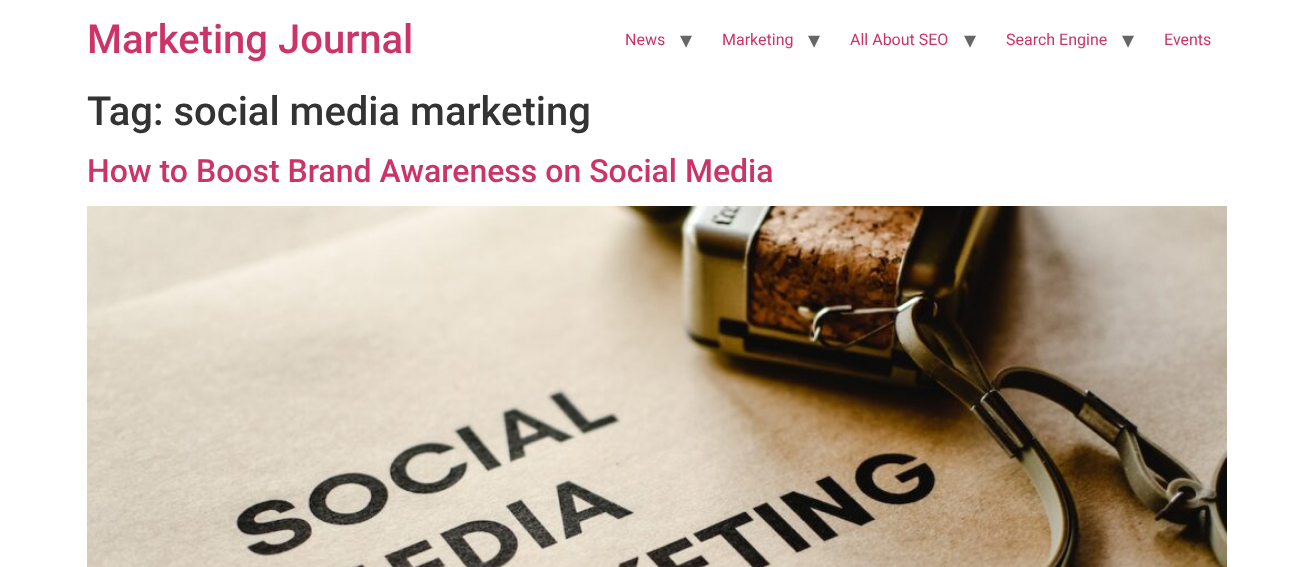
<!DOCTYPE html>
<meta charset="utf-8">
<style>body { margin: 0 } canvas { display: block }</style>
<canvas id="canvas" width="1313" height="567"></canvas>
<img id="img1" src="img_01.png" hidden>
<script>
window.onload = function () {
	const canvas = document.getElementById("canvas");
	const ctx = canvas.getContext("2d");
	ctx.miterLimit = 4;
	ctx.fontKerning = "normal";
	function txt(s, x, y) {
		ctx.fillText(s, x, y);
	}
	function fill(x, y, w, h) {
		ctx.fillRect(x, y, w, h);
	}
	function img(id, x, y, w, h) {
		ctx.drawImage(document.getElementById(id), x, y, w, h);
	}

	ctx.fillStyle = "#FFFFFF";
	fill(0, 0, 1313, 567);
	img("img1", 87, 206, 1140, 361);
	ctx.font = "500 40px Roboto";
	ctx.fillStyle = "#CC3366";
	txt("Marketing Journal", 87, 53);
	ctx.font = "16px Roboto";
	txt("News", 625, 45);
	ctx.font = "24px DejaVu Sans";
	ctx.fillStyle = "#666666";
	txt("▾", 680, 48);
	ctx.font = "16px Roboto";
	ctx.fillStyle = "#CC3366";
	txt("Marketing", 722, 45);
	ctx.font = "24px DejaVu Sans";
	ctx.fillStyle = "#666666";
	txt("▾", 808, 48);
	ctx.font = "16px Roboto";
	ctx.fillStyle = "#CC3366";
	txt("All About SEO", 850, 45);
	ctx.font = "24px DejaVu Sans";
	ctx.fillStyle = "#666666";
	txt("▾", 964, 48);
	ctx.font = "16px Roboto";
	ctx.fillStyle = "#CC3366";
	txt("Search Engine", 1006, 45);
	ctx.font = "24px DejaVu Sans";
	ctx.fillStyle = "#666666";
	txt("▾", 1122, 48);
	ctx.font = "16px Roboto";
	ctx.fillStyle = "#CC3366";
	txt("Events", 1164, 45);
	ctx.font = "500 40px Roboto";
	ctx.fillStyle = "#333333";
	txt("Tag: social media marketing", 87, 125);
	ctx.font = "500 32px Roboto";
	ctx.fillStyle = "#CC3366";
	txt("How to Boost Brand Awareness on Social Media", 87, 182);
};
</script>
